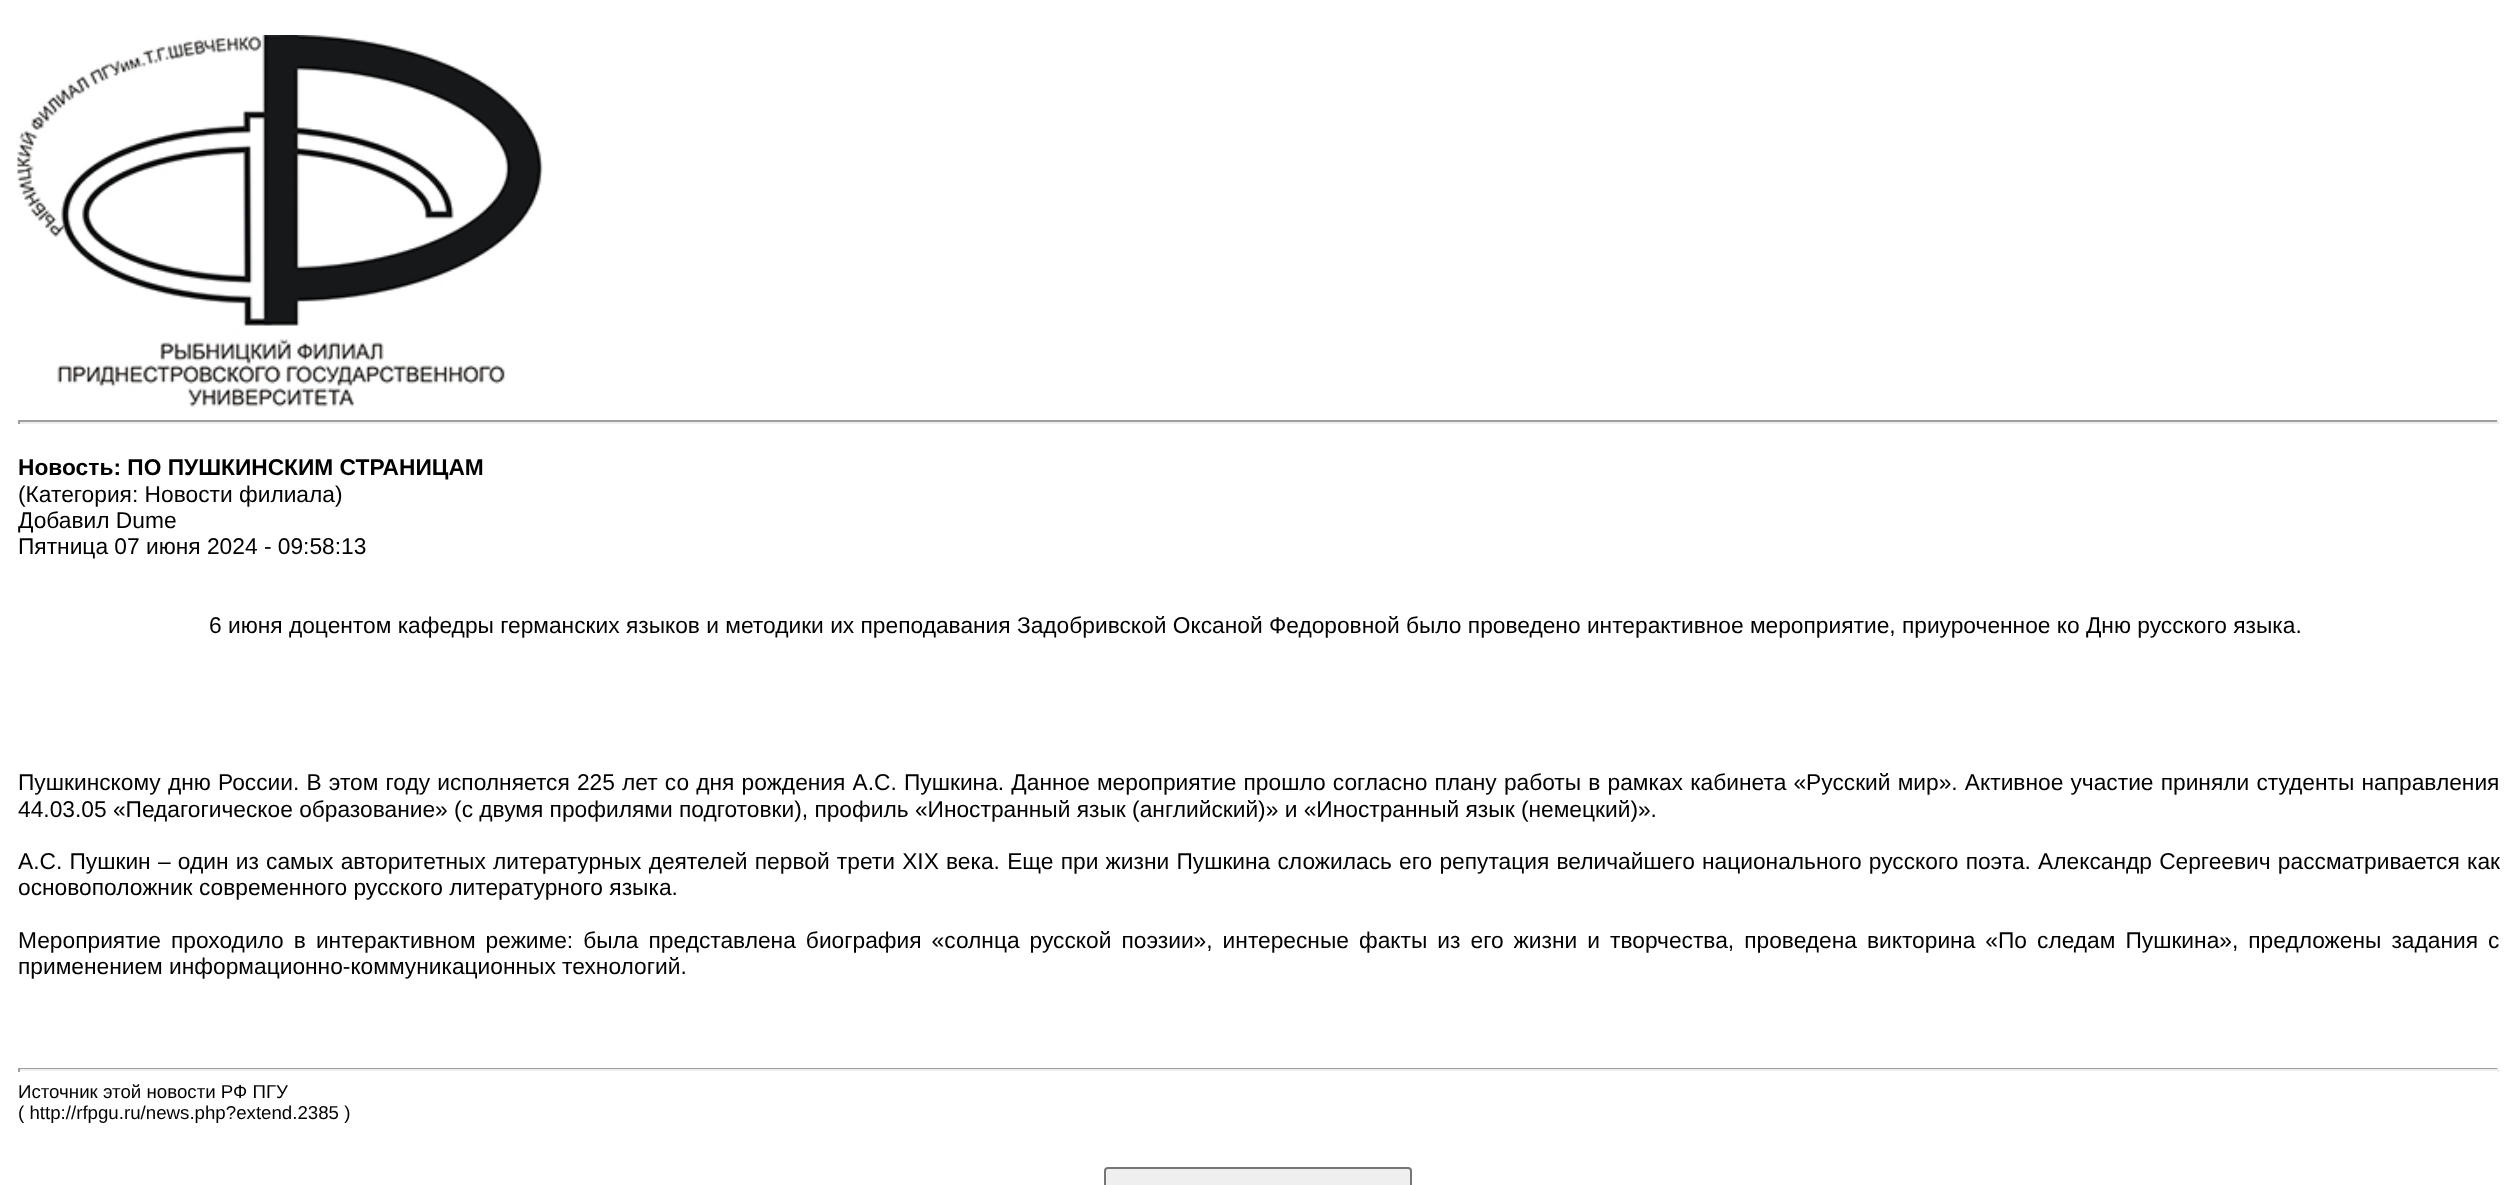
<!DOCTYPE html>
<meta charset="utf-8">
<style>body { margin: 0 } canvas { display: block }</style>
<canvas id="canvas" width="2516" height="1185"></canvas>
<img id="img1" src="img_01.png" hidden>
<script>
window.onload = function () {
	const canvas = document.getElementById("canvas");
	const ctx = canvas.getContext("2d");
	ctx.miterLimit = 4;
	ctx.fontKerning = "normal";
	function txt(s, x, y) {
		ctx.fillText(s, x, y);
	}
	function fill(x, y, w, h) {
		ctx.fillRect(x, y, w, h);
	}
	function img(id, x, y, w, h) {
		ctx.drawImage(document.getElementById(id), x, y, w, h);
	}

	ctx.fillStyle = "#FFFFFF";
	fill(0, 0, 2516, 1185);
	img("img1", 17, 35, 526, 372);
	ctx.fillStyle = "#9F9F9F";
	fill(18, 420, 2481, 2);
	ctx.fillStyle = "#EEEEEE";
	fill(2497, 420, 2, 4);
	fill(18, 422, 2481, 2);
	ctx.fillStyle = "#9F9F9F";
	fill(18, 420, 2, 4);
	fill(18, 1068, 2481, 1);
	ctx.fillStyle = "#EEEEEE";
	fill(2497, 1068, 2, 4);
	fill(18, 1069, 2481, 2);
	ctx.fillStyle = "#9F9F9F";
	fill(18, 1068, 2, 4);
	ctx.fillStyle = "#EFEFEF";
	ctx.beginPath();
	ctx.roundRect(1105, 1168, 306, 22, 3);
	ctx.fill();
	ctx.strokeStyle = "#767676";
	ctx.lineWidth = 2;
	ctx.stroke();
	ctx.font = "bold 22.75px Liberation Sans";
	ctx.fillStyle = "#000000";
	txt("Новость: ПО ПУШКИНСКИМ СТРАНИЦАМ", 18, 475);
	ctx.font = "22.75px Liberation Sans";
	txt("(Категория: Новости филиала)", 18, 502);
	txt("Добавил Dume", 18, 528);
	txt("Пятница 07 июня 2024 - 09:58:13", 18, 554);
	txt("6 июня доцентом кафедры германских языков и методики их преподавания Задобривской Оксаной Федоровной было проведено интерактивное мероприятие, приуроченное ко Дню русского языка. ", 209, 633);
	ctx.wordSpacing = "0.85px";
	txt("Пушкинскому дню России. В этом году исполняется 225 лет со дня рождения А.С. Пушкина. Данное мероприятие прошло согласно плану работы в рамках кабинета «Русский мир». Активное участие приняли студенты направления", 18, 790);
	ctx.wordSpacing = "0px";
	txt("44.03.05 «Педагогическое образование» (с двумя профилями подготовки), профиль «Иностранный язык (английский)» и «Иностранный язык (немецкий)».", 18, 817);
	ctx.wordSpacing = "0.9px";
	txt("А.С. Пушкин – один из самых авторитетных литературных деятелей первой трети XIX века. Еще при жизни Пушкина сложилась его репутация величайшего национального русского поэта. Александр Сергеевич рассматривается как", 18, 869);
	ctx.wordSpacing = "0px";
	txt("основоположник современного русского литературного языка.", 18, 895);
	ctx.wordSpacing = "3.7px";
	txt("Мероприятие проходило в интерактивном режиме: была представлена биография «солнца русской поэзии», интересные факты из его жизни и творчества, проведена викторина «По следам Пушкина», предложены задания с", 18, 948);
	ctx.wordSpacing = "0px";
	txt("применением информационно-коммуникационных технологий.", 18, 974);
	ctx.font = "18.7px Liberation Sans";
	txt("Источник этой новости РФ ПГУ", 18, 1098);
	txt("( http://rfpgu.ru/news.php?extend.2385 )", 18, 1119);
};
</script>
